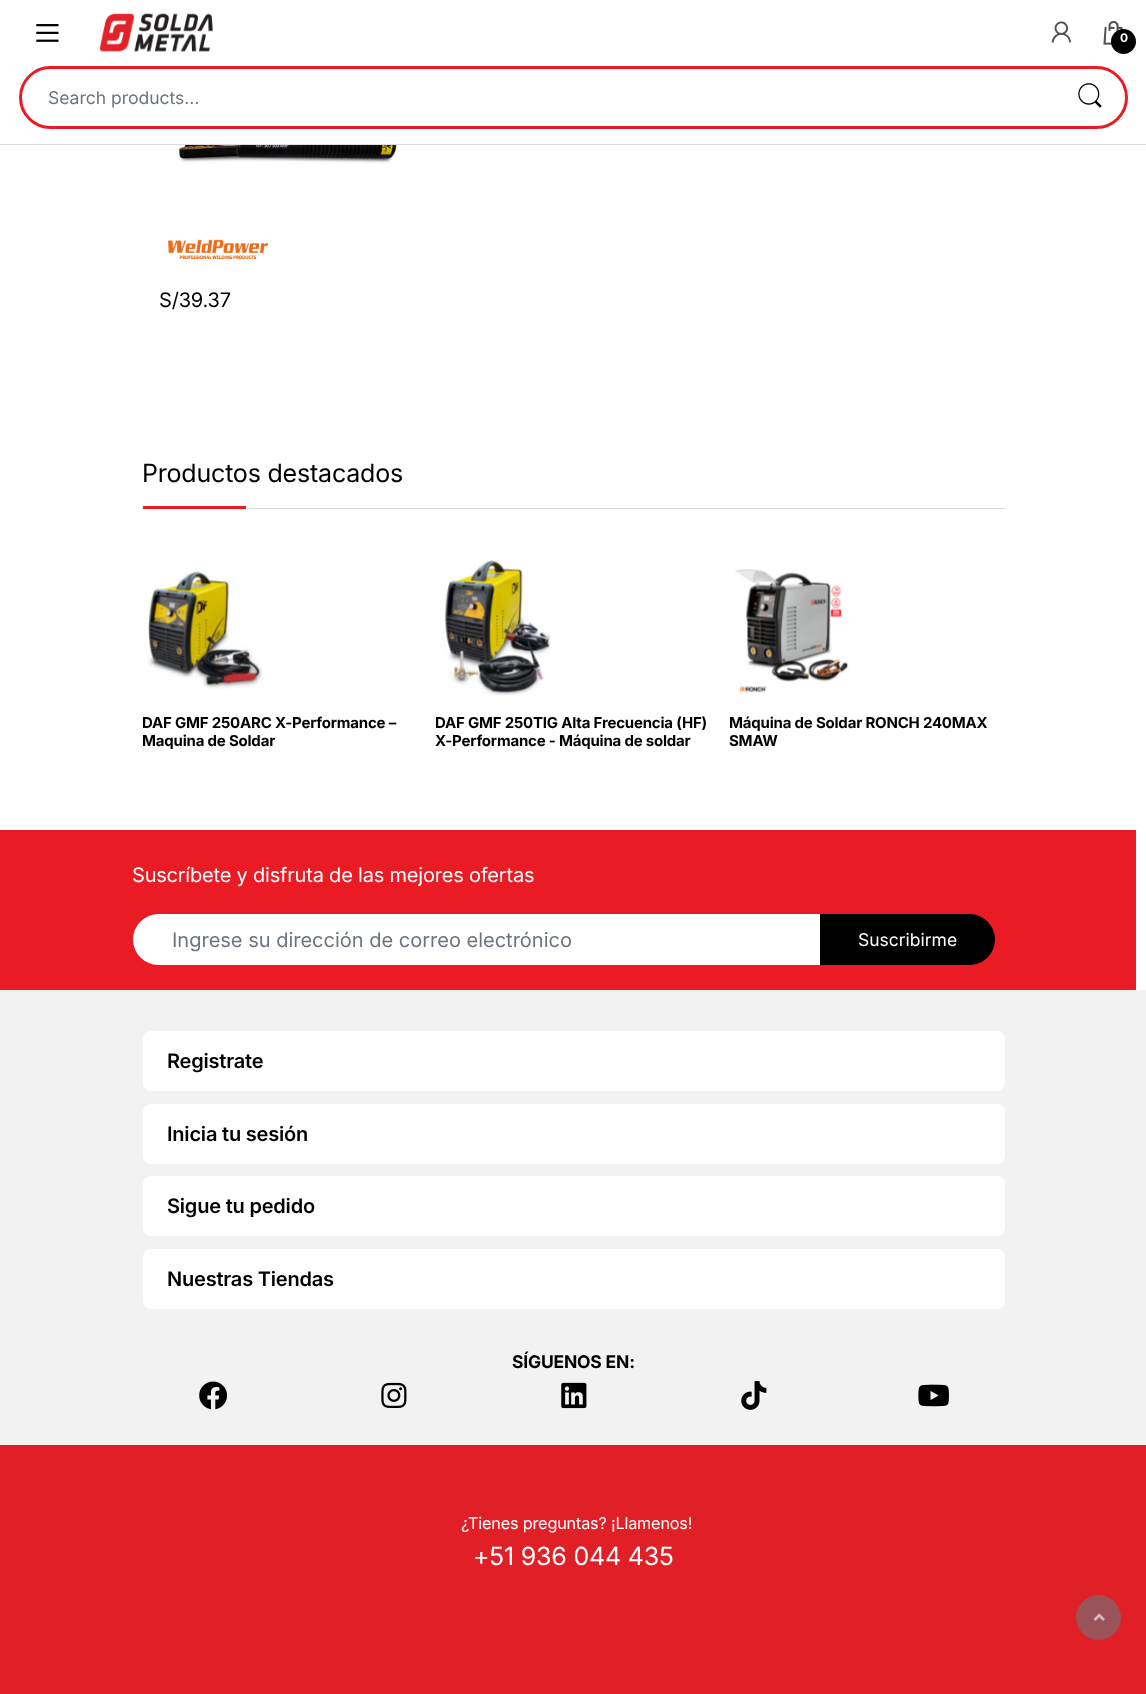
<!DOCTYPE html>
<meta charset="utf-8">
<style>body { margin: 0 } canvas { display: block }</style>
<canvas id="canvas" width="1146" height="1694"></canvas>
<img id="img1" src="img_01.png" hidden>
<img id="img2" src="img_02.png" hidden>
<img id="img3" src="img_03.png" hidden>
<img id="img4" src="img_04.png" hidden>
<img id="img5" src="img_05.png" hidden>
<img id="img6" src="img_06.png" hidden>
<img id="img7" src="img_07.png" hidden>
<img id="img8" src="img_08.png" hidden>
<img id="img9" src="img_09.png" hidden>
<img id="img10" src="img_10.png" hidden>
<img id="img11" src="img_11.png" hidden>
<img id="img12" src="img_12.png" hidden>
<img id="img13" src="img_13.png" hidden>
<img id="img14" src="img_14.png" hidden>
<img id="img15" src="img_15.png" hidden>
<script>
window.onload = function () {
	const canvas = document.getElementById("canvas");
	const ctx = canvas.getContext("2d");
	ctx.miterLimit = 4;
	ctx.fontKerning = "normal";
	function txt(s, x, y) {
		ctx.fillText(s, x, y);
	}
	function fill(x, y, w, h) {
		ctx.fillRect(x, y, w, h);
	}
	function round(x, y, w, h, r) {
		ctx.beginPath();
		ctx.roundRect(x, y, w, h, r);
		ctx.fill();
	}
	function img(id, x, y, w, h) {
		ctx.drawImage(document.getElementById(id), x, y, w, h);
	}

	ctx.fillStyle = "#FFFFFF";
	fill(0, 0, 1146, 1694);
	ctx.fillStyle = "#DDDDDD";
	fill(0, 144, 1146, 1);
	img("img1", 36, 24, 23, 18);
	img("img2", 99, 13, 114, 39);
	img("img3", 1051, 21, 20, 22);
	img("img4", 1103, 21, 20, 24);
	ctx.fillStyle = "#000000";
	ctx.beginPath();
	ctx.arc(1123.5, 41.5, 12.5, 0, Math.PI * 2);
	ctx.fill();
	ctx.beginPath();
	ctx.roundRect(20.5, 67.5, 1106, 60, 30);
	ctx.strokeStyle = "#EA1B25";
	ctx.lineWidth = 3;
	ctx.stroke();
	img("img5", 1078, 83, 24, 25);
	img("img6", 167, 145, 230, 114);
	ctx.fillStyle = "#DDDDDD";
	fill(246, 508, 759, 1);
	ctx.fillStyle = "#EA1B25";
	fill(143, 506, 103, 3);
	img("img7", 148, 571, 115, 118);
	img("img8", 444, 560, 107, 136);
	img("img9", 735, 569, 114, 125);
	fill(0, 830, 1136, 160);
	ctx.fillStyle = "#FFFFFF";
	ctx.beginPath();
	ctx.roundRect(133, 914, 687, 51, [25.5, 0, 0, 25.5]);
	ctx.fill();
	ctx.fillStyle = "#000000";
	ctx.beginPath();
	ctx.roundRect(820, 914, 175, 51, [0, 25.5, 25.5, 0]);
	ctx.fill();
	ctx.fillStyle = "#F2F2F2";
	fill(0, 990, 1146, 455);
	ctx.fillStyle = "#FFFFFF";
	round(143, 1031, 862, 60, 8);
	round(143, 1104, 862, 60, 8);
	round(143, 1176, 862, 60, 8);
	round(143, 1249, 862, 60, 8);
	img("img10", 199, 1381, 29, 29);
	img("img11", 381, 1382, 26, 27);
	img("img12", 561, 1382, 26, 27);
	img("img13", 741, 1381, 26, 29);
	img("img14", 918, 1384, 31, 23);
	ctx.fillStyle = "#E11F26";
	fill(0, 1445, 1146, 249);
	ctx.fillStyle = "#9B535A";
	ctx.beginPath();
	ctx.arc(1098.5, 1617.5, 22, 0, Math.PI * 2);
	ctx.fill();
	ctx.strokeStyle = "#9B535A";
	ctx.lineWidth = 1;
	ctx.stroke();
	img("img15", 1093, 1613, 12, 8);
	ctx.letterSpacing = "-0.2px";
	ctx.font = "bold 12px Inter";
	ctx.fillStyle = "#FFFFFF";
	txt("0", 1120, 42);
	ctx.letterSpacing = "0px";
	ctx.font = "17.5px Inter";
	ctx.fillStyle = "#6C757D";
	txt("Search products…", 48, 104);
	ctx.letterSpacing = "-0.2px";
	ctx.font = "20px Inter";
	ctx.fillStyle = "#000000";
	txt("S/39.37", 159, 307);
	ctx.font = "25px Inter";
	txt("Productos destacados", 142, 482);
	ctx.font = "bold 15px Inter";
	txt("DAF GMF 250ARC X-Performance –", 142, 728);
	txt("Maquina de Soldar", 142, 746);
	txt("DAF GMF 250TIG Alta Frecuencia (HF)", 435, 728);
	txt("X-Performance - Máquina de soldar", 435, 746);
	txt("Máquina de Soldar RONCH 240MAX", 729, 728);
	txt("SMAW", 729, 746);
	ctx.font = "20px Inter";
	ctx.fillStyle = "#FFFFFF";
	txt("Suscríbete y disfruta de las mejores ofertas", 132, 882);
	ctx.letterSpacing = "0px";
	ctx.fillStyle = "#6C757D";
	txt("Ingrese su dirección de correo electrónico", 172, 947);
	ctx.font = "17.5px Inter";
	ctx.fillStyle = "#FFFFFF";
	txt("Suscribirme", 858, 946);
	ctx.letterSpacing = "-0.2px";
	ctx.font = "600 20px Inter";
	ctx.fillStyle = "#000000";
	txt("Registrate", 167, 1068);
	txt("Inicia tu sesión", 167, 1141);
	txt("Sigue tu pedido", 167, 1213);
	txt("Nuestras Tiendas", 167, 1286);
	ctx.font = "bold 17.5px Inter";
	txt("SÍGUENOS EN:", 512, 1368);
	ctx.font = "16.25px Inter";
	ctx.fillStyle = "#FFFFFF";
	txt("¿Tienes preguntas? ¡Llamenos!", 461, 1529);
	ctx.font = "25px Inter";
	txt("+51 936 044 435", 473, 1565);
};
</script>
